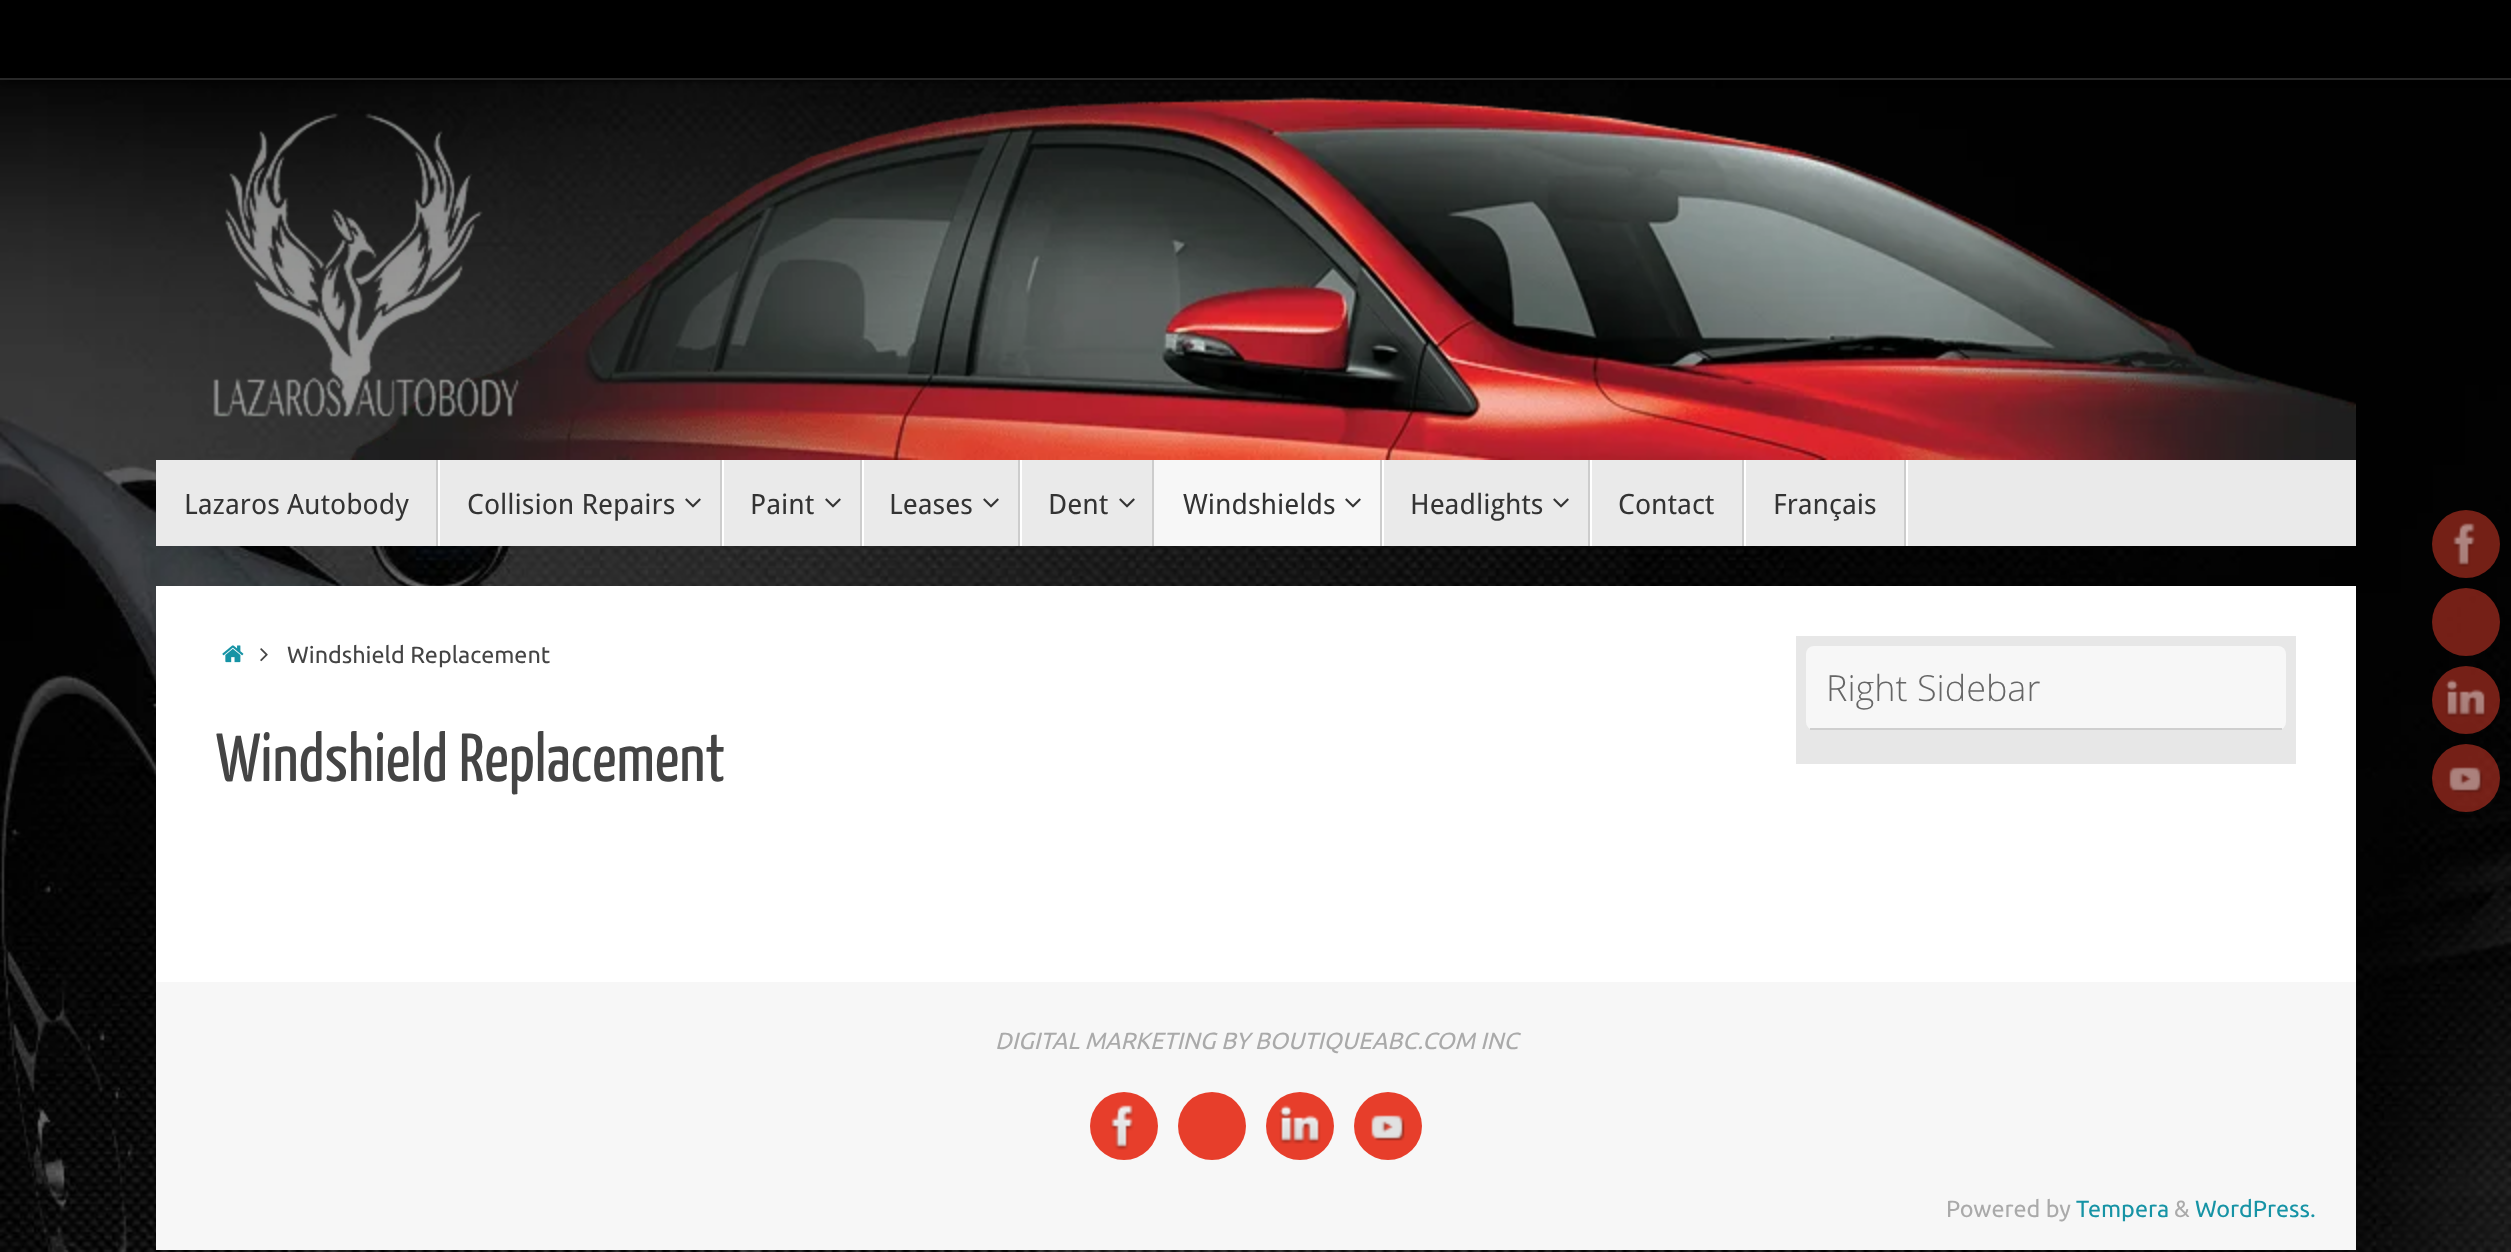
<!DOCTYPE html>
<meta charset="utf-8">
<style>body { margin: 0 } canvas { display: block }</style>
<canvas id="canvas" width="2511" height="1252"></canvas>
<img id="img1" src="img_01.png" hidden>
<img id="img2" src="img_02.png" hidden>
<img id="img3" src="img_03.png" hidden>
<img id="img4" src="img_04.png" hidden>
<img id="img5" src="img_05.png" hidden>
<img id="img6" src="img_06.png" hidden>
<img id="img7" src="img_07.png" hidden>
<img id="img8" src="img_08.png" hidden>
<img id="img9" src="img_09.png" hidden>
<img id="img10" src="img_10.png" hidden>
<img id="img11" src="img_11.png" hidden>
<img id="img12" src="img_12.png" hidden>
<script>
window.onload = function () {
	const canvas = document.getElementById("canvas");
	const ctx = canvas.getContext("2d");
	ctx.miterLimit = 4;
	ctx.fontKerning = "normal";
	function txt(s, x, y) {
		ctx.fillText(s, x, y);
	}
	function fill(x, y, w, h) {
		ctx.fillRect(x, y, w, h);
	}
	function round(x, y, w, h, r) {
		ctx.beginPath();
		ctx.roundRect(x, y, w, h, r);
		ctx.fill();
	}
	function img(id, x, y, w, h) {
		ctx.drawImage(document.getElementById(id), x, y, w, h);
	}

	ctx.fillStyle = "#FFFFFF";
	fill(0, 0, 2511, 1252);
	img("img1", 0, 80, 2511, 1172);
	ctx.fillStyle = "#000000";
	ctx.filter = "blur(3px)";
	ctx.beginPath();
	ctx.rect(6, 0, 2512, 80);
	ctx.fill();
	ctx.filter = "none";
	fill(0, 0, 2511, 78);
	ctx.fillStyle = "#282828";
	fill(0, 78, 2511, 2);
	img("img2", 213, 97, 2143, 363);
	ctx.fillStyle = "#EAEAEA";
	fill(156, 460, 2200, 86);
	ctx.fillStyle = "#FFFFFF";
	fill(438, 460, 2, 86);
	ctx.fillStyle = "#CCCCCC";
	fill(436, 460, 2, 86);
	ctx.fillStyle = "#FFFFFF";
	fill(722, 460, 2, 86);
	ctx.fillStyle = "#CCCCCC";
	fill(720, 460, 2, 86);
	img("img3", 685, 498, 16, 10);
	ctx.fillStyle = "#FFFFFF";
	fill(862, 460, 2, 86);
	ctx.fillStyle = "#CCCCCC";
	fill(860, 460, 2, 86);
	img("img3", 825, 498, 16, 10);
	ctx.fillStyle = "#FFFFFF";
	fill(1020, 460, 2, 86);
	ctx.fillStyle = "#CCCCCC";
	fill(1018, 460, 2, 86);
	img("img3", 983, 498, 16, 10);
	fill(1152, 460, 2, 86);
	img("img3", 1119, 498, 16, 10);
	ctx.fillStyle = "#F7F7F7";
	fill(1154, 460, 226, 86);
	ctx.fillStyle = "#FFFFFF";
	fill(1382, 460, 2, 86);
	ctx.fillStyle = "#CCCCCC";
	fill(1380, 460, 2, 86);
	img("img4", 1345, 498, 16, 10);
	ctx.fillStyle = "#FFFFFF";
	fill(1590, 460, 2, 86);
	ctx.fillStyle = "#CCCCCC";
	fill(1588, 460, 2, 86);
	img("img3", 1553, 498, 16, 10);
	ctx.fillStyle = "#FFFFFF";
	fill(1744, 460, 2, 86);
	ctx.fillStyle = "#CCCCCC";
	fill(1742, 460, 2, 86);
	ctx.fillStyle = "#FFFFFF";
	fill(1906, 460, 2, 86);
	ctx.fillStyle = "#CCCCCC";
	fill(1904, 460, 2, 86);
	ctx.fillStyle = "#FFFFFF";
	fill(156, 586, 2200, 396);
	img("img5", 222, 645, 22, 18);
	img("img6", 260, 648, 8, 14);
	ctx.fillStyle = "#E7E7E7";
	fill(1796, 636, 500, 128);
	ctx.fillStyle = "#F7F7F7";
	round(1806, 646, 480, 84, 8);
	ctx.fillStyle = "#CFCFCF";
	fill(1810, 728, 472, 2);
	ctx.fillStyle = "#F7F7F7";
	fill(156, 982, 2200, 268);
	ctx.fillStyle = "#E73E2B";
	ctx.beginPath();
	ctx.arc(1124, 1126, 34, 0, Math.PI * 2);
	ctx.fill();
	img("img7", 1110, 1105, 24, 45);
	ctx.beginPath();
	ctx.arc(1212, 1126, 34, 0, Math.PI * 2);
	ctx.fill();
	ctx.beginPath();
	ctx.arc(1300, 1126, 34, 0, Math.PI * 2);
	ctx.fill();
	img("img8", 1279, 1105, 42, 39);
	ctx.beginPath();
	ctx.arc(1388, 1126, 34, 0, Math.PI * 2);
	ctx.fill();
	img("img9", 1371, 1115, 34, 26);
	ctx.fillStyle = "#742016";
	ctx.beginPath();
	ctx.arc(2466, 544, 34, 0, Math.PI * 2);
	ctx.fill();
	img("img10", 2453, 523, 22, 44);
	ctx.fillStyle = "rgba(231, 62, 43, 0.5)";
	ctx.beginPath();
	ctx.arc(2466, 622, 34, 0, Math.PI * 2);
	ctx.fill();
	ctx.beginPath();
	ctx.arc(2466, 700, 34, 0, Math.PI * 2);
	ctx.fill();
	img("img11", 2445, 679, 41, 38);
	ctx.beginPath();
	ctx.arc(2466, 778, 34, 0, Math.PI * 2);
	ctx.fill();
	img("img12", 2449, 767, 34, 26);
	ctx.font = "28px Droid Sans";
	ctx.fillStyle = "#333333";
	txt("Lazaros Autobody", 184, 514);
	txt("Collision Repairs", 467, 514);
	txt("Paint", 750, 514);
	txt("Leases", 889, 514);
	txt("Dent", 1048, 514);
	txt("Windshields", 1183, 514);
	txt("Headlights", 1410, 514);
	txt("Contact", 1618, 514);
	txt("Français", 1773, 514);
	ctx.font = "23.4px Ubuntu";
	ctx.fillStyle = "#444444";
	txt("Windshield Replacement", 287, 663);
	ctx.font = "68px Yanone Kaffeesatz";
	txt("Windshield Replacement", 216, 781);
	ctx.font = "300 36px Open Sans";
	ctx.fillStyle = "#666666";
	txt("Right Sidebar", 1826, 701);
	ctx.font = "italic 23.4px Ubuntu";
	ctx.fillStyle = "#AAAAAA";
	txt("DIGITAL MARKETING BY BOUTIQUEABC.COM INC", 995, 1049);
	ctx.font = "23.4px Ubuntu";
	txt("Powered by", 1946, 1217);
	ctx.fillStyle = "#1693A5";
	txt("Tempera", 2076, 1217);
	ctx.fillStyle = "#AAAAAA";
	txt("&", 2174, 1217);
	ctx.fillStyle = "#1693A5";
	txt("WordPress.", 2195, 1217);
};
</script>
